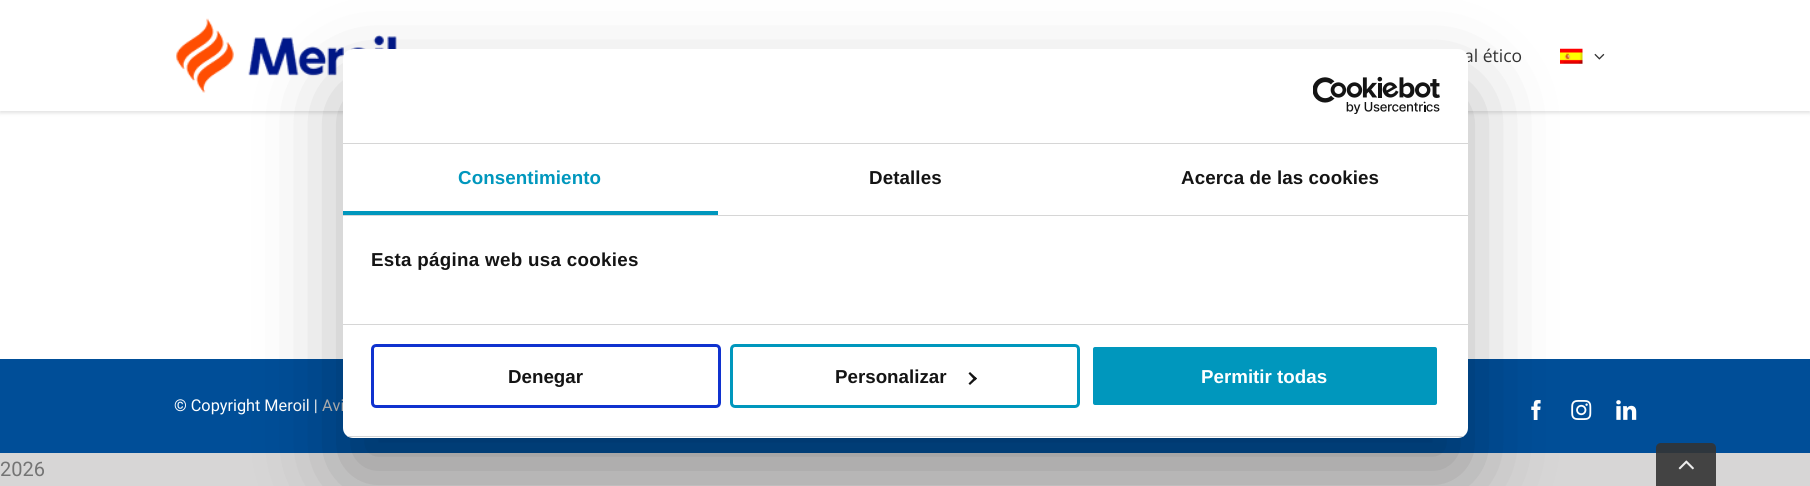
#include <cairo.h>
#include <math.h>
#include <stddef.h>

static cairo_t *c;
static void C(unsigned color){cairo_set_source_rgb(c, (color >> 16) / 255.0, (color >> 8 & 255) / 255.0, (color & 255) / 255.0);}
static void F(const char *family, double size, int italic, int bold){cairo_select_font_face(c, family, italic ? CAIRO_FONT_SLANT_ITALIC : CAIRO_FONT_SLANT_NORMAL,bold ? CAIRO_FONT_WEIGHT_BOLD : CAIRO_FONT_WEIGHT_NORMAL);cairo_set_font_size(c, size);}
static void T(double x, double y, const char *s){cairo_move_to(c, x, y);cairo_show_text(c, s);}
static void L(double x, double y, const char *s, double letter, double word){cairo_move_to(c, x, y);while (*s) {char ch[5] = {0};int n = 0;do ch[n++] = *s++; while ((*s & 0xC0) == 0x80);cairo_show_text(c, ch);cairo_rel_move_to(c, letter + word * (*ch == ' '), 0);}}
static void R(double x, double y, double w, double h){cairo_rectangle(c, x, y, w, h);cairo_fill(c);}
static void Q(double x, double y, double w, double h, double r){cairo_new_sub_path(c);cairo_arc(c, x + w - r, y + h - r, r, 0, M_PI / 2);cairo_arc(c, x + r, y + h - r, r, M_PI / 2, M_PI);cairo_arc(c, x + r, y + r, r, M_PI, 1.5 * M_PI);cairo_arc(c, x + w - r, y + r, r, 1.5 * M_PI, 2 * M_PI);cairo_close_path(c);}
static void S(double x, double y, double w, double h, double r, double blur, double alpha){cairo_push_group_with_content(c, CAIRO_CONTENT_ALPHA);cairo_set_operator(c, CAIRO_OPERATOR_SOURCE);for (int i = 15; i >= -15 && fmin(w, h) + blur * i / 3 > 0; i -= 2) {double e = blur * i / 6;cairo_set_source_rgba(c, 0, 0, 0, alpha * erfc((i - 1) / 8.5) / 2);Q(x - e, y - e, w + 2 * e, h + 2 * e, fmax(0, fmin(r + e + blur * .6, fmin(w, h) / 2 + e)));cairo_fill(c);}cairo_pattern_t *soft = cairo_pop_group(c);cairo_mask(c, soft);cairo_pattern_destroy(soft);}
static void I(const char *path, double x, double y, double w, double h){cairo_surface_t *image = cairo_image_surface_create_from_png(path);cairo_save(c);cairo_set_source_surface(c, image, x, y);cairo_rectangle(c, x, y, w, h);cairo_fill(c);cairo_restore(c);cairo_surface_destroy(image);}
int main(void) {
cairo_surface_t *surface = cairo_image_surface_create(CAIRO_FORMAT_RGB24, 1810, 486);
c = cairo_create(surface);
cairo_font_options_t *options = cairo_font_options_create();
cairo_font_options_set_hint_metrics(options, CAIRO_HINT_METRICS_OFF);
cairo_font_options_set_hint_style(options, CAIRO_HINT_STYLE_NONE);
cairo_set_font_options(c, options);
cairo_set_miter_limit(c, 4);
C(0xd7d6d6);
cairo_paint(c);
C(0xffffff);
R(0,111,1810,248);
C(0x000000);
S(0,1,1810,112,0,2,.12);
C(0xffffff);
R(0,0,1810,111);
I("1.png",176,18,221,75);
F("Open Sans",17.5,0,0);
C(0x333333);
T(1464,62,"al ético");
I("2.png",1560,48,23,16);
I("3.png",1594,53,11,7);
C(0x004e98);
R(0,359,1810,94);
F("Roboto",16.25,0,0);
C(0xffffff);
T(174,411,"© Copyright Meroil |");
C(0xbfbfbf);
T(322,411,"Avi");
I("4.png",1531,400,10,20);
I("5.png",1571,400,21,20);
I("6.png",1616,400,21,20);
C(0x000000);
S(343,89,1125,389,10,42.5,.3);
C(0xffffff);
Q(343,49,1125,389,10);
cairo_fill(c);
C(0xd6d6d6);
R(343,143,1125,1);
I("7.png",1313,76,127,38);
R(343,215,1125,1);
C(0x0097bd);
R(343,211,375,4);
F("Liberation Sans",18.75,0,1);
L(458,184,"Consentimiento",.1,0);
C(0x141414);
L(869,184,"Detalles",.1,0);
L(1181,184,"Acerca de las cookies",.1,0);
C(0xd6d6d6);
R(343,324,1125,1);
C(0x141414);
L(371,266,"Esta página web usa cookies",.3,0);
cairo_save(c);
Q(343,49,1125,389,10);
cairo_clip(c);
C(0xd6d6d6);
R(343,436,1125,1);
cairo_restore(c);
Q(372.5,345.5,347,61,3.5);
C(0x1032cf);
cairo_set_line_width(c,3);
cairo_stroke(c);
C(0x141414);
T(508,383,"Denegar");
Q(731.5,345.5,347,61,3.5);
C(0x0097bd);
cairo_stroke(c);
C(0x141414);
T(835,383,"Personalizar");
cairo_new_path(c);
cairo_move_to(c,970,372);
cairo_line_to(c,977,378.5);
cairo_line_to(c,975,380.5);
cairo_line_to(c,968.5,373.5);
cairo_close_path(c);
cairo_fill(c);
cairo_new_path(c);
cairo_move_to(c,975,377);
cairo_line_to(c,977,378.5);
cairo_line_to(c,970,385);
cairo_line_to(c,968.5,383.5);
cairo_close_path(c);
cairo_fill(c);
C(0x0097bd);
Q(1091.5,345.5,347,61,3.5);
cairo_fill_preserve(c);
C(0xffffff);
cairo_stroke(c);
T(1201,383,"Permitir todas");
F("Roboto",20,0,0);
C(0x747474);
T(0,476,"2026");
cairo_set_source_rgba(c,0.2,0.2,0.2,0.9);
cairo_new_path(c);
cairo_move_to(c,1661,443);
cairo_line_to(c,1711,443);
cairo_curve_to(c,1714,443,1716,445,1716,448);
cairo_line_to(c,1716,486);
cairo_line_to(c,1656,486);
cairo_line_to(c,1656,448);
cairo_curve_to(c,1656,445,1658,443,1661,443);
cairo_close_path(c);
cairo_fill(c);
I("8.png",1678,460,16,10);
cairo_surface_write_to_png(surface, "o.png");
cairo_font_options_destroy(options);
cairo_destroy(c);
cairo_surface_destroy(surface);
return 0;
}
